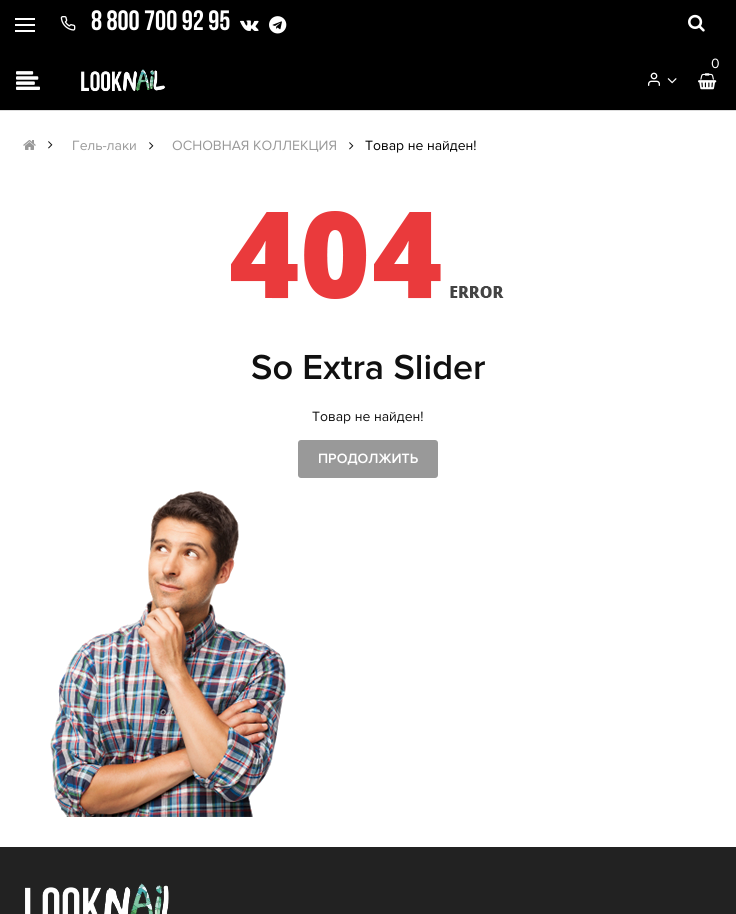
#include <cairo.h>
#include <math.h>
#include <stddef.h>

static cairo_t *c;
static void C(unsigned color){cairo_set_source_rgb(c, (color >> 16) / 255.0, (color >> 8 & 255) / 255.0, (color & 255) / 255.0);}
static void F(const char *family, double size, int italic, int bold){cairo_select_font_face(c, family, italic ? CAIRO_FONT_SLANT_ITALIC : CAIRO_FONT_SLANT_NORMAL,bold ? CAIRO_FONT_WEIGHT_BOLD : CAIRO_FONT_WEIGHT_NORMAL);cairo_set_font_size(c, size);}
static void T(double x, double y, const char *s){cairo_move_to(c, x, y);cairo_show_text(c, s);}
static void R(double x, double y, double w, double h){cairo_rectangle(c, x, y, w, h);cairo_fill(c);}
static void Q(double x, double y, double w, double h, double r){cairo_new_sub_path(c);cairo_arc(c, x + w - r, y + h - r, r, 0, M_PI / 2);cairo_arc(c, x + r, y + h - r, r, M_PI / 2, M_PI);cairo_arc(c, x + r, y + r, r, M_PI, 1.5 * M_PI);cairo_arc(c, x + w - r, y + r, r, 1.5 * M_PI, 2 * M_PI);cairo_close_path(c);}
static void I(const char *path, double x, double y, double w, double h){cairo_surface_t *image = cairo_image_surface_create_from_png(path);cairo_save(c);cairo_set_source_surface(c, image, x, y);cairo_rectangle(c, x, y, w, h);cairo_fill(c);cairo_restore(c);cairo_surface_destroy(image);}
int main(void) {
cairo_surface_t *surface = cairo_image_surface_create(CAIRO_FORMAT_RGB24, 736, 914);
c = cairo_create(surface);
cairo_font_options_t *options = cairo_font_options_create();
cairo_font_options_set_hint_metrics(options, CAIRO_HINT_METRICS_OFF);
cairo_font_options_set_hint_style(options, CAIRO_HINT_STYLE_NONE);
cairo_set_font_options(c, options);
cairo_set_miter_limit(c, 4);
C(0xffffff);
cairo_paint(c);
C(0x000000);
R(0,0,736,110);
C(0xdddddd);
R(0,110,736,1);
C(0xffffff);
R(15,18,20,2);
R(15,24,20,2);
R(15,30,20,2);
I("1.png",60,16,16,15);
F("Bebas Neue",28,0,1);
T(91,30,"8 800 700 92 95");
I("2.png",240,20,19,11);
I("3.png",269,16,18,18);
I("4.png",688,14,17,18);
F("Proxima Nova",14,0,0);
T(711,68,"0");
I("5.png",698,73,19,17);
I("6.png",648,72,12,14);
I("7.png",667,78,10,6);
I("8.png",16,71,24,19);
I("9.png",81,69,85,23);
I("10.png",23,140,13,10);
I("11.png",48,141,5,8);
C(0x999999);
T(72,150,"Гель-лаки");
I("11.png",149,142,5,8);
T(172,150,"ОСНОВНАЯ КОЛЛЕКЦИЯ");
I("11.png",349,142,5,8);
C(0x000000);
T(365,150,"Товар не найден!");
I("12.png",231,211,273,88);
F("Proxima Nova SemiBold",36,0,0);
C(0x101010);
T(251,379,"So Extra Slider");
F("Proxima Nova",14,0,0);
T(312,421,"Товар не найден!");
C(0x999999);
Q(298,440,140,38,3);
cairo_fill(c);
F("Proxima Nova SemiBold",14,0,0);
C(0xffffff);
T(318,463,"ПРОДОЛЖИТЬ");
I("13.png",50,491,236,326);
C(0x222222);
R(0,847,736,67);
I("14.png",25,883,144,31);
cairo_surface_write_to_png(surface, "o.png");
cairo_font_options_destroy(options);
cairo_destroy(c);
cairo_surface_destroy(surface);
return 0;
}
